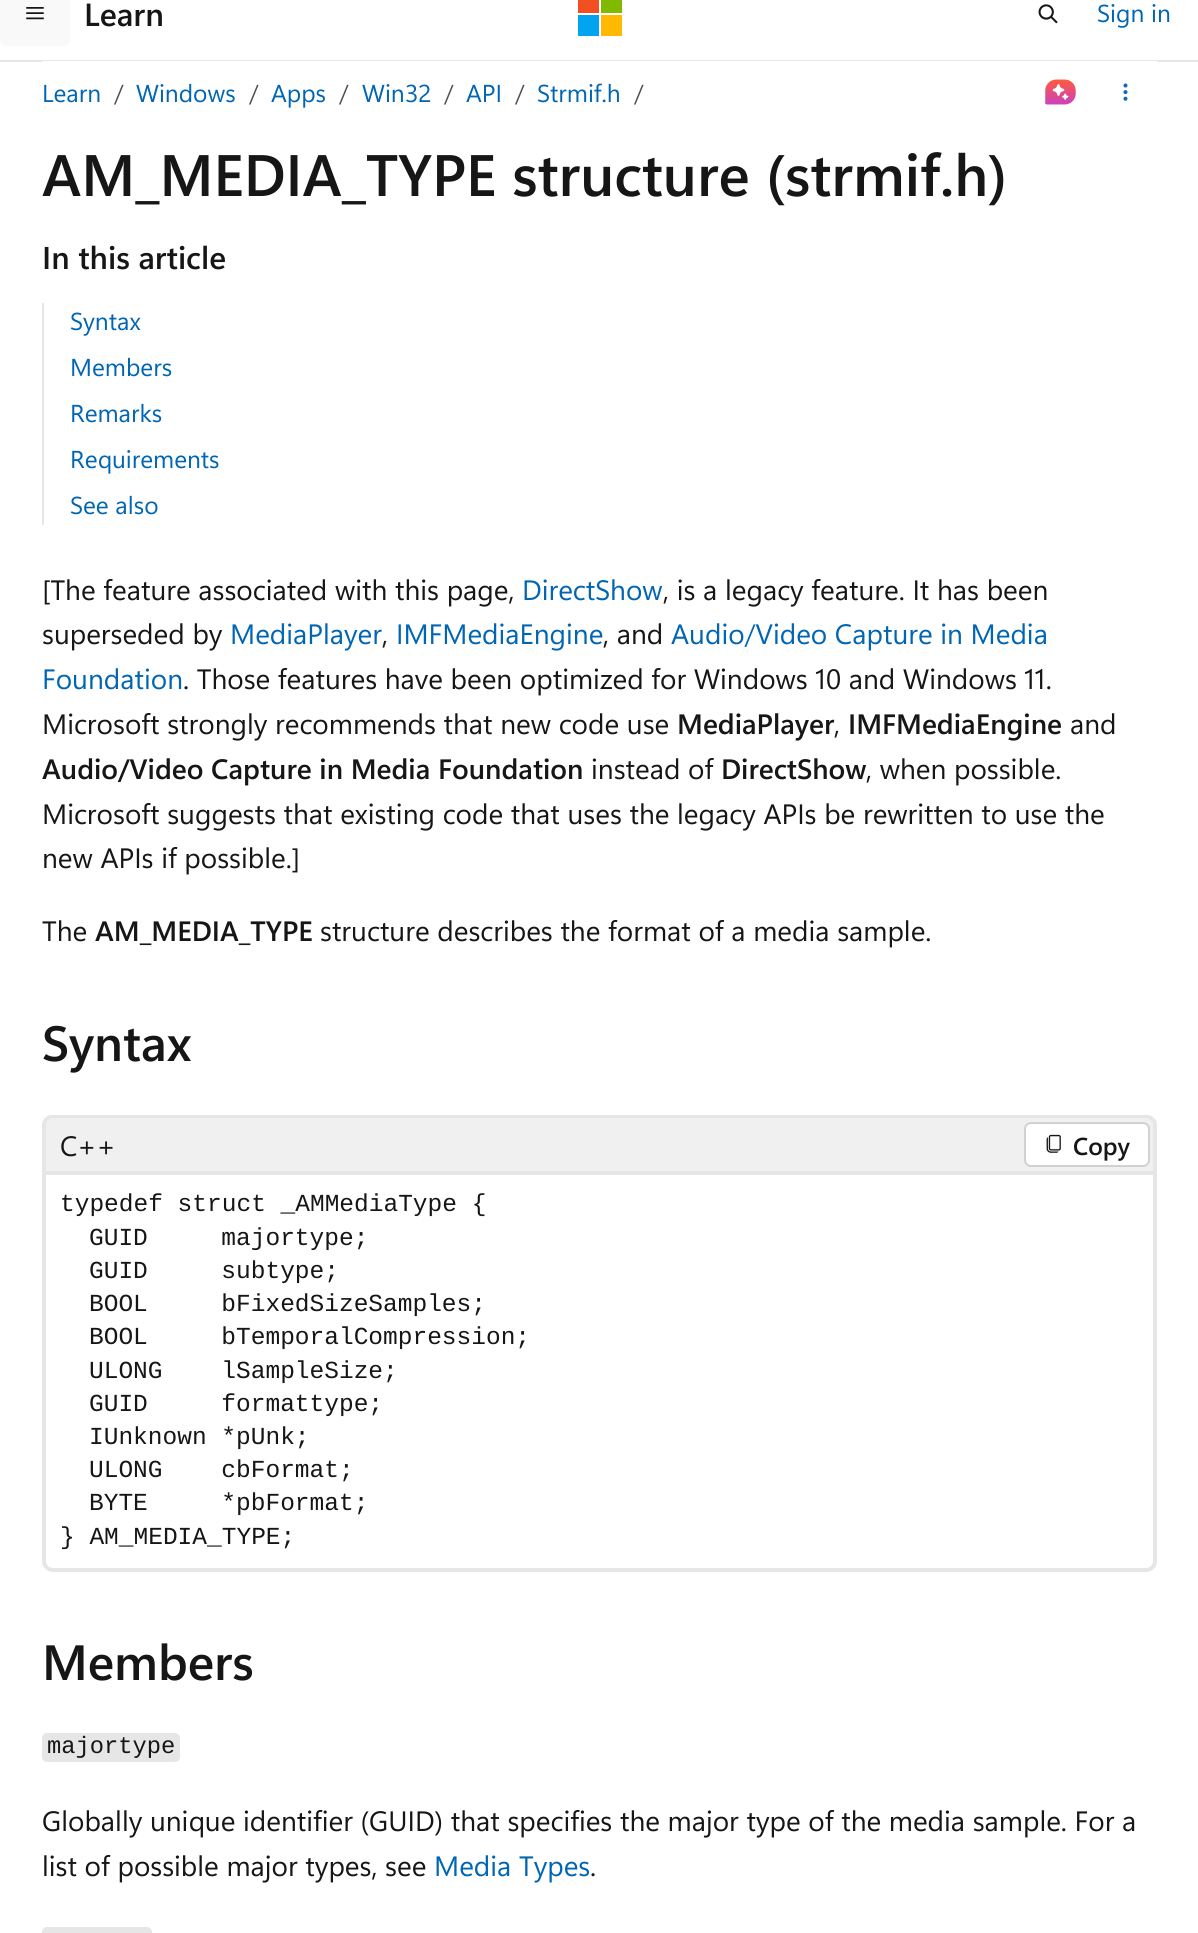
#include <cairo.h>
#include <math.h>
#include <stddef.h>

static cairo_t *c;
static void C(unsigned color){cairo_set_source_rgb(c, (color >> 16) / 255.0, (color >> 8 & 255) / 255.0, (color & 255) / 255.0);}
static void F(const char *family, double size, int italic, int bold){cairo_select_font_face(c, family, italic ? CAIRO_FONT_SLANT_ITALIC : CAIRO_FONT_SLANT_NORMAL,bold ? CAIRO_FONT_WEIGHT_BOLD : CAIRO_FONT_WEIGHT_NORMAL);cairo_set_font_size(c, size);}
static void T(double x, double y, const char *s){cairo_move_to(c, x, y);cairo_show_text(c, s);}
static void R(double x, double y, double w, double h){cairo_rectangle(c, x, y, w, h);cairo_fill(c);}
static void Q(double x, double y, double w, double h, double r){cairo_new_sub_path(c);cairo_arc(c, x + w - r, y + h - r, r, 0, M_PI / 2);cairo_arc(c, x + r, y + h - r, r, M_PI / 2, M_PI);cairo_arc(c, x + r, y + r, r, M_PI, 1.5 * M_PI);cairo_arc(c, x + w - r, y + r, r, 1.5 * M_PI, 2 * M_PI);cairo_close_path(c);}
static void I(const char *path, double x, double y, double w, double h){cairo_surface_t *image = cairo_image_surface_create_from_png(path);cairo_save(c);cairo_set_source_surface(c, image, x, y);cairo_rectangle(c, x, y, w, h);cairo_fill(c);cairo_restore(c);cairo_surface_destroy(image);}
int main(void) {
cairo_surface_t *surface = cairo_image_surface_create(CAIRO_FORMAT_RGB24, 1198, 1933);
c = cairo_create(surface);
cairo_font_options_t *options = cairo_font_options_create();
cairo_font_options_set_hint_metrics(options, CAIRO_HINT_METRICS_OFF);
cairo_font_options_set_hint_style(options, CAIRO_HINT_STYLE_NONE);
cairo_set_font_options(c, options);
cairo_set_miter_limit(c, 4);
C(0xffffff);
cairo_paint(c);
C(0xe6e6e6);
R(0,60,1198,2);
C(0xf9f9f9);
Q(0,-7,70,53,7);
cairo_fill(c);
I("1.png",26,7,18,13);
F("Segoe UI SemiBold",32,0,0);
C(0x161616);
T(84,26,"Learn");
C(0xf25022);
R(578,0,21,13);
C(0x7fba00);
R(601,0,21,13);
C(0x00a4ef);
R(578,15,21,21);
C(0xffb900);
R(601,15,21,21);
I("2.png",1038,4,20,20);
F("Segoe UI",24.5,0,0);
C(0x0065b3);
T(1097,22,"Sign in");
C(0xffffff);
R(42,61,1115,1);
C(0x0065b3);
T(42,102,"Learn");
C(0x505050);
T(114,102,"/");
C(0x0065b3);
T(136,102,"Windows");
C(0x505050);
T(249,102,"/");
C(0x0065b3);
T(271,102,"Apps");
C(0x505050);
T(339,102,"/");
C(0x0065b3);
T(362,102,"Win32");
C(0x505050);
T(444,102,"/");
C(0x0065b3);
T(466,102,"API");
C(0x505050);
T(515,102,"/");
C(0x0065b3);
T(537,102,"Strmif.h");
C(0x505050);
T(634,102,"/");
I("3.png",1045,79,31,26);
I("4.png",1123,83,5,18);
F("Segoe UI SemiBold",58.4,0,0);
C(0x161616);
T(42,196,"AM_MEDIA_TYPE structure (strmif.h)");
F("Segoe UI SemiBold",31.5,0,0);
T(42,269,"In this article");
C(0xe6e6e6);
R(42,303,2,222);
F("Segoe UI",24.5,0,0);
C(0x0065b3);
T(70,330,"Syntax");
T(70,376,"Members");
T(70,422,"Remarks");
T(70,468,"Requirements");
T(70,514,"See also");
F("Segoe UI",28,0,0);
C(0x161616);
T(42,600,"[The feature associated with this page,");
C(0x0065b3);
T(522,600,"DirectShow");
C(0x161616);
T(663,600,", is a legacy feature. It has been");
T(42,644,"superseded by");
C(0x0065b3);
T(230,644,"MediaPlayer");
C(0x161616);
T(382,644,",");
C(0x0065b3);
T(396,644,"IMFMediaEngine");
C(0x161616);
T(603,644,", and");
C(0x0065b3);
T(671,644,"Audio/Video Capture in Media");
T(42,689,"Foundation");
C(0x161616);
T(183,689,". Those features have been optimized for Windows 10 and Windows 11.");
T(42,734,"Microsoft strongly recommends that new code use");
F("Segoe UI SemiBold",28,0,0);
T(677,734,"MediaPlayer");
F("Segoe UI",28,0,0);
T(834,734,",");
F("Segoe UI SemiBold",28,0,0);
T(848,734,"IMFMediaEngine");
F("Segoe UI",28,0,0);
T(1070,734,"and");
F("Segoe UI SemiBold",28,0,0);
T(42,779,"Audio/Video Capture in Media Foundation");
F("Segoe UI",28,0,0);
T(591,779,"instead of");
F("Segoe UI SemiBold",28,0,0);
T(721,779,"DirectShow");
F("Segoe UI",28,0,0);
T(866,779,", when possible.");
T(42,824,"Microsoft suggests that existing code that uses the legacy APIs be rewritten to use the");
T(42,868,"new APIs if possible.]");
T(42,941,"The");
F("Segoe UI SemiBold",28,0,0);
T(95,941,"AM_MEDIA_TYPE");
F("Segoe UI",28,0,0);
T(320,941,"structure describes the format of a media sample.");
F("Segoe UI SemiBold",49.5,0,0);
T(42,1061,"Syntax");
C(0xf0f0f0);
cairo_new_path(c);
cairo_move_to(c,53,1115);
cairo_line_to(c,1146,1115);
cairo_curve_to(c,1152,1115,1157,1120,1157,1126);
cairo_line_to(c,1157,1171);
cairo_line_to(c,42,1171);
cairo_line_to(c,42,1126);
cairo_curve_to(c,42,1120,47,1115,53,1115);
cairo_close_path(c);
cairo_fill(c);
C(0xe6e6e6);
cairo_set_fill_rule(c,CAIRO_FILL_RULE_EVEN_ODD);
cairo_new_path(c);
cairo_move_to(c,52,1115);
cairo_line_to(c,1146,1115);
cairo_curve_to(c,1152,1115,1157,1119,1157,1125);
cairo_line_to(c,1157,1171);
cairo_line_to(c,42,1171);
cairo_line_to(c,42,1125);
cairo_curve_to(c,42,1119,47,1115,52,1115);
cairo_close_path(c);
cairo_move_to(c,52,1118);
cairo_line_to(c,1146,1118);
cairo_curve_to(c,1150,1118,1153,1121,1153,1125);
cairo_line_to(c,1153,1171);
cairo_line_to(c,46,1171);
cairo_line_to(c,46,1125);
cairo_curve_to(c,46,1121,49,1118,52,1118);
cairo_close_path(c);
cairo_fill(c);
F("Segoe UI",28,0,0);
C(0x161616);
T(60,1156,"C++");
C(0xffffff);
Q(1025,1123,124,43,6);
cairo_fill_preserve(c);
C(0xd1d1d1);
cairo_stroke(c);
I("5.png",1046,1134,15,19);
F("Segoe UI SemiBold",24.5,0,0);
C(0x161616);
T(1073,1155,"Copy");
cairo_new_path(c);
cairo_move_to(c,44,1173);
cairo_line_to(c,1155,1173);
cairo_line_to(c,1155,1561);
cairo_curve_to(c,1155,1566,1151,1570,1146,1570);
cairo_line_to(c,53,1570);
cairo_curve_to(c,48,1570,44,1566,44,1561);
cairo_close_path(c);
C(0xe6e6e6);
cairo_set_line_width(c,4);
cairo_stroke(c);
F("Liberation Mono",24.5,0,0);
C(0x161616);
T(60,1211,"typedef struct _AMMediaType {");
T(89,1245,"GUID     majortype;");
T(89,1278,"GUID     subtype;");
T(89,1311,"BOOL     bFixedSizeSamples;");
T(89,1344,"BOOL     bTemporalCompression;");
T(89,1378,"ULONG    lSampleSize;");
T(89,1411,"GUID     formattype;");
T(89,1444,"IUnknown *pUnk;");
T(89,1477,"ULONG    cbFormat;");
T(89,1510,"BYTE     *pbFormat;");
T(60,1544,"} AM_MEDIA_TYPE;");
F("Segoe UI SemiBold",49.5,0,0);
T(42,1680,"Members");
C(0xe6e6e6);
Q(42,1733,138,29,5);
cairo_fill(c);
F("Liberation Mono",23.75,0,0);
C(0x161616);
T(47,1753,"majortype");
F("Segoe UI",28,0,0);
T(42,1831,"Globally unique identifier (GUID) that specifies the major type of the media sample. For a");
T(42,1876,"list of possible major types, see");
C(0x0065b3);
T(434,1876,"Media Types");
C(0x161616);
T(590,1876,".");
C(0xe6e6e6);
Q(42,1927,110,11,5);
cairo_fill(c);
cairo_surface_write_to_png(surface, "o.png");
cairo_font_options_destroy(options);
cairo_destroy(c);
cairo_surface_destroy(surface);
return 0;
}
